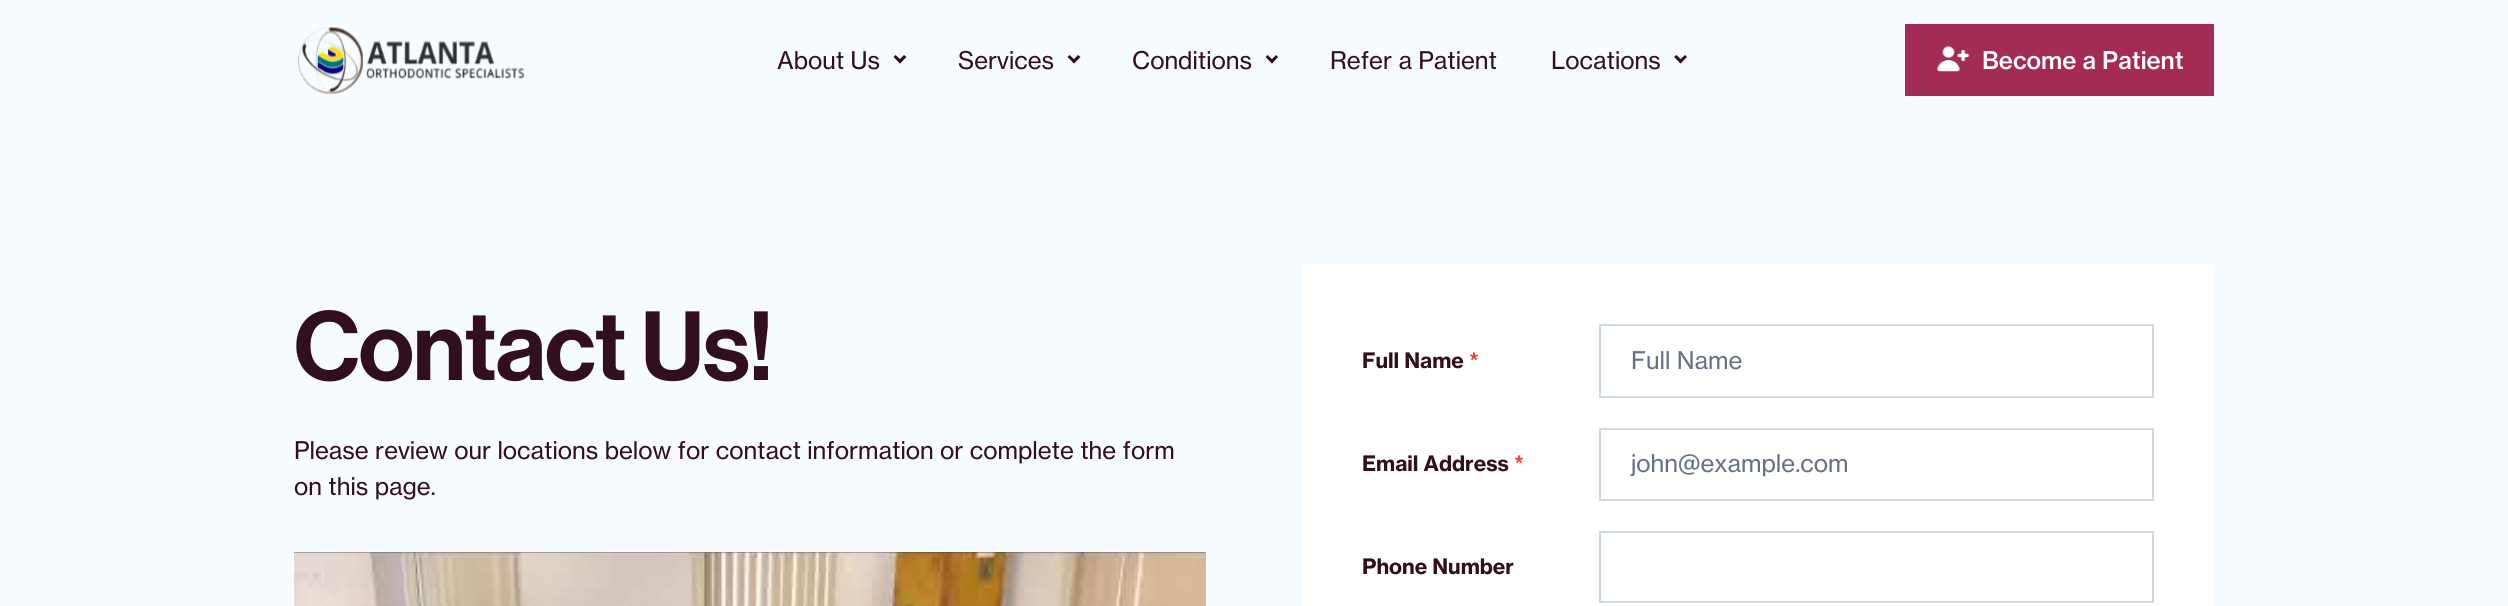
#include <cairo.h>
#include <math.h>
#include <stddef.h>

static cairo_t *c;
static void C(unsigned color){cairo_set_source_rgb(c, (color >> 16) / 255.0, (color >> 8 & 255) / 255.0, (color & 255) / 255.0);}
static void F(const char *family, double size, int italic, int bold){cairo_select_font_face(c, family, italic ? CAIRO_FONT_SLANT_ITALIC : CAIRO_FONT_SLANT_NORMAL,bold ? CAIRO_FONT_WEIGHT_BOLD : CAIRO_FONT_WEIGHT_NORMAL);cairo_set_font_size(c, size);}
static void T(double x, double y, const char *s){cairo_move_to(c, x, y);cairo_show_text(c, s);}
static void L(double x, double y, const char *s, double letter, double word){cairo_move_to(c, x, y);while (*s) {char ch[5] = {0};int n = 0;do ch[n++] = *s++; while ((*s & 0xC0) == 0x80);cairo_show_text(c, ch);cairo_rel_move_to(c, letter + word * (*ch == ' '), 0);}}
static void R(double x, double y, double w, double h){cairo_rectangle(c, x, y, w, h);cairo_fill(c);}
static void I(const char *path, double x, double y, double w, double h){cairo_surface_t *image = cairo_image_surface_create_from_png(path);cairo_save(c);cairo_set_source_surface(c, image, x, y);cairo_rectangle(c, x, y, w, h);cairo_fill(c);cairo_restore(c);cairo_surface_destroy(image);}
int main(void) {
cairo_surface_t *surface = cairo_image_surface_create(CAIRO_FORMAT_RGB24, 2508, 606);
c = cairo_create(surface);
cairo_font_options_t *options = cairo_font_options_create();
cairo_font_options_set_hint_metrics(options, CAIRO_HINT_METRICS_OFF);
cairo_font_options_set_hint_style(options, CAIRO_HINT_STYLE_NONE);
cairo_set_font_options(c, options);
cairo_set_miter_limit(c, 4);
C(0xf6fbff);
cairo_paint(c);
I("1.png",298,27,227,68);
F("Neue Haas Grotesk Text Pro",24,0,0);
C(0x310f1d);
T(777,69,"About Us");
cairo_new_path(c);
cairo_move_to(c,904,55);
cairo_line_to(c,906.5,57);
cairo_line_to(c,900,63.5);
cairo_line_to(c,898,61);
cairo_close_path(c);
cairo_fill(c);
cairo_new_path(c);
cairo_move_to(c,895.5,55);
cairo_line_to(c,902,61);
cairo_line_to(c,900,63.5);
cairo_line_to(c,893.5,57);
cairo_close_path(c);
cairo_fill(c);
T(958,69,"Services");
cairo_new_path(c);
cairo_move_to(c,1078,55);
cairo_line_to(c,1080.5,57);
cairo_line_to(c,1074,63.5);
cairo_line_to(c,1072,61);
cairo_close_path(c);
cairo_fill(c);
cairo_new_path(c);
cairo_move_to(c,1069.5,55);
cairo_line_to(c,1076,61);
cairo_line_to(c,1074,63.5);
cairo_line_to(c,1067.5,57);
cairo_close_path(c);
cairo_fill(c);
T(1132,69,"Conditions");
cairo_new_path(c);
cairo_move_to(c,1276,55);
cairo_line_to(c,1278,57);
cairo_line_to(c,1272,63.5);
cairo_line_to(c,1270,61);
cairo_close_path(c);
cairo_fill(c);
cairo_new_path(c);
cairo_move_to(c,1267.5,55);
cairo_line_to(c,1274,61);
cairo_line_to(c,1272,63.5);
cairo_line_to(c,1265.5,57);
cairo_close_path(c);
cairo_fill(c);
T(1330,69,"Refer a Patient");
T(1551,69,"Locations");
cairo_new_path(c);
cairo_move_to(c,1685,55);
cairo_line_to(c,1687,57);
cairo_line_to(c,1680.5,63.5);
cairo_line_to(c,1678.5,61);
cairo_close_path(c);
cairo_fill(c);
cairo_new_path(c);
cairo_move_to(c,1676.5,55);
cairo_line_to(c,1682.5,61);
cairo_line_to(c,1680.5,63.5);
cairo_line_to(c,1674,57);
cairo_close_path(c);
cairo_fill(c);
C(0xa32c56);
R(1905,24,309,72);
I("2.png",1937,46,33,26);
F("Neue Haas Grotesk Text Pro Medium",24,0,0);
C(0xfefdfd);
T(1982,69,"Become a Patient");
F("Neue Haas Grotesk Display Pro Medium",96,0,0);
C(0x310f1d);
L(294,380,"Contact Us!",-.9,0);
F("Neue Haas Grotesk Text Pro",24,0,0);
T(294,459,"Please review our locations below for contact information or complete the form");
T(294,495,"on this page.");
I("3.png",294,552,912,54);
C(0xffffff);
R(1302,264,912,342);
F("Neue Haas Grotesk Text Pro",21,0,1);
C(0x310f1d);
T(1362,368,"Full Name");
C(0xf04438);
T(1469,368,"*");
cairo_rectangle(c,1600,325,553,72);
C(0xcfd9e1);
cairo_stroke(c);
F("Neue Haas Grotesk Text Pro",24,0,0);
C(0x667085);
T(1631,369,"Full Name");
F("Neue Haas Grotesk Text Pro",21,0,1);
C(0x310f1d);
T(1362,471,"Email Address");
C(0xf04438);
T(1514,471,"*");
cairo_rectangle(c,1600,429,553,71);
C(0xcfd9e1);
cairo_stroke(c);
F("Neue Haas Grotesk Text Pro",24,0,0);
C(0x667085);
T(1631,472,"john@example.com");
F("Neue Haas Grotesk Text Pro",21,0,1);
C(0x310f1d);
T(1362,574,"Phone Number");
cairo_rectangle(c,1600,532,553,70);
C(0xcfd9e1);
cairo_stroke(c);
cairo_surface_write_to_png(surface, "o.png");
cairo_font_options_destroy(options);
cairo_destroy(c);
cairo_surface_destroy(surface);
return 0;
}
